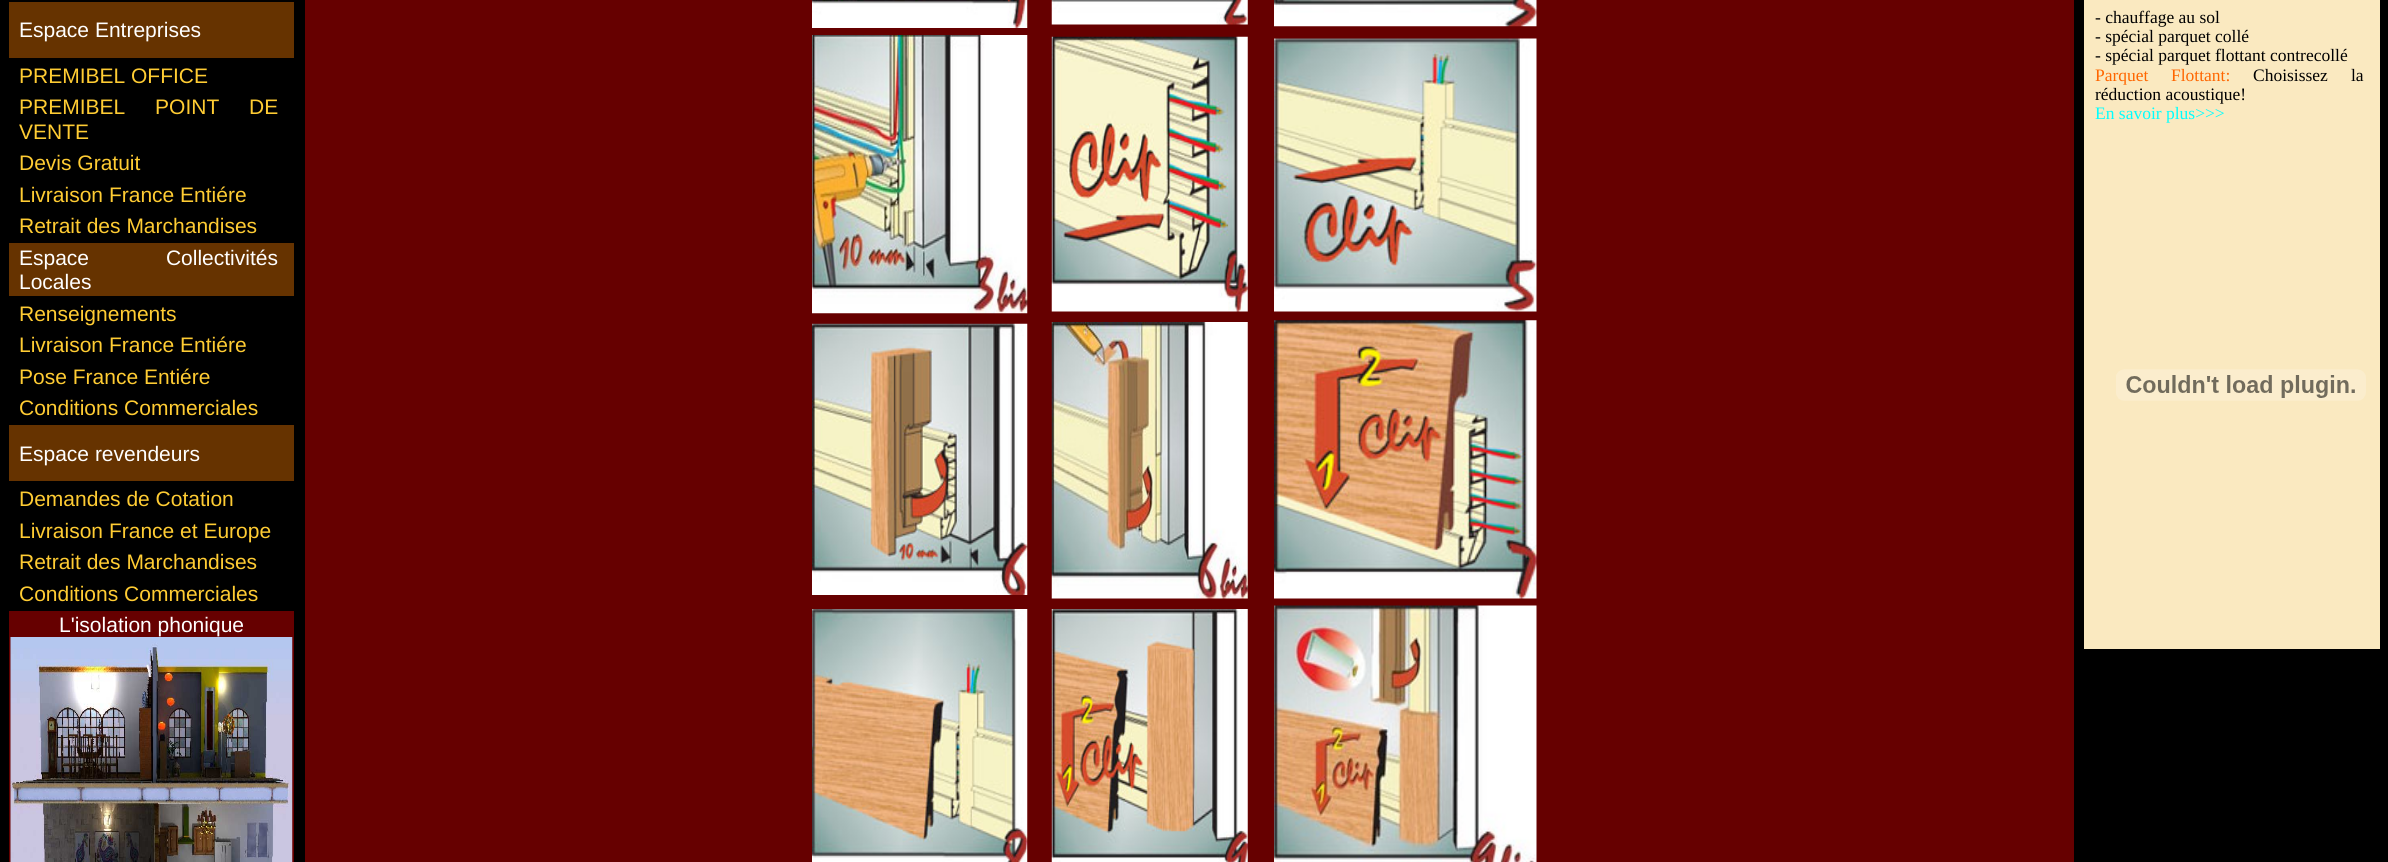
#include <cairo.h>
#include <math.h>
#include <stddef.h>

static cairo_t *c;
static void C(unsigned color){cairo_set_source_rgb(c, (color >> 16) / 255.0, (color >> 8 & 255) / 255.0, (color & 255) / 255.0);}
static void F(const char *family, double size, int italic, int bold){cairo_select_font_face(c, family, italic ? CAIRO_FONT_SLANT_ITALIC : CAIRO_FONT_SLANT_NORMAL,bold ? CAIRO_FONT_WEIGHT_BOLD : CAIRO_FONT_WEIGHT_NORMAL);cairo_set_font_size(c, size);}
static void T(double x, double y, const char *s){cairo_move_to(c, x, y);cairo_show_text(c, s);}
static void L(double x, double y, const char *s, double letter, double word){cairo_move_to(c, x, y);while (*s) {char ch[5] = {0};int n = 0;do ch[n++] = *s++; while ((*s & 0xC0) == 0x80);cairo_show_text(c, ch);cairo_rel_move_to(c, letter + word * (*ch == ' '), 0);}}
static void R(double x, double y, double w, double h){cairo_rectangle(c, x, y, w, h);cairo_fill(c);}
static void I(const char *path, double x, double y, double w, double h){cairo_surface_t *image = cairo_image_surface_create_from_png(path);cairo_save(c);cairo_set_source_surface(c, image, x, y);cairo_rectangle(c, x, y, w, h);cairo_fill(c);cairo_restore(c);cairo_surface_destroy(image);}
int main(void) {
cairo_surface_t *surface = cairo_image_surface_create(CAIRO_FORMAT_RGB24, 2388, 862);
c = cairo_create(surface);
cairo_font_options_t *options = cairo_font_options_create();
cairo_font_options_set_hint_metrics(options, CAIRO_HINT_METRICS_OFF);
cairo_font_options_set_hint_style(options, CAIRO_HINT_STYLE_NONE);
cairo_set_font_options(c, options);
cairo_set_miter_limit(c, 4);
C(0x000000);
cairo_paint(c);
C(0x663300);
R(9,2,285,56);
F("Liberation Sans",21,0,0);
C(0xffffff);
T(19,37,"Espace Entreprises");
C(0xffcc33);
T(19,83,"PREMIBEL OFFICE");
L(19,114,"PREMIBEL POINT DE",0,24);
T(19,139,"VENTE");
T(19,170,"Devis Gratuit");
T(19,202,"Livraison France Entiére");
T(19,233,"Retrait des Marchandises");
C(0x663300);
R(9,243,285,53);
C(0xffffff);
L(19,265,"Espace Collectivités",0,71);
T(19,289,"Locales");
C(0xffcc33);
T(19,321,"Renseignements");
T(19,352,"Livraison France Entiére");
T(19,384,"Pose France Entiére");
T(19,415,"Conditions Commerciales");
C(0x663300);
R(9,425,285,56);
C(0xffffff);
T(19,461,"Espace revendeurs");
C(0xffcc33);
T(19,506,"Demandes de Cotation");
T(19,538,"Livraison France et Europe");
T(19,569,"Retrait des Marchandises");
T(19,601,"Conditions Commerciales");
C(0x660000);
R(9,611,285,251);
C(0xffffff);
T(59,632,"L'isolation phonique");
I("1.png",10,637,283,225);
C(0x660000);
R(305,0,1769,862);
I("2.png",812,0,216,28);
I("3.png",1051,0,197,25);
I("4.png",1274,0,263,27);
I("5.png",812,35,216,279);
I("6.png",1051,36,197,276);
I("7.png",1274,38,263,274);
I("8.png",812,323,216,272);
I("9.png",1051,322,197,277);
I("10.png",1274,320,263,279);
I("11.png",812,609,216,253);
I("12.png",1051,609,197,253);
I("13.png",1274,605,263,257);
C(0xfae9c0);
R(2084,0,296,649);
F("Liberation Serif",17.5,0,0);
C(0x000000);
T(2095,23,"- chauffage au sol");
T(2095,42,"- spécial parquet collé");
T(2095,61,"- spécial parquet flottant contrecollé");
C(0xff6600);
T(2095,81,"Parquet");
T(2171,81,"Flottant:");
C(0x000000);
T(2253,81,"Choisissez");
T(2351,81,"la");
T(2095,100,"réduction acoustique!");
C(0x00ffff);
T(2095,119,"En savoir plus>>>");
I("14.png",2116,369,250,32);
cairo_surface_write_to_png(surface, "o.png");
cairo_font_options_destroy(options);
cairo_destroy(c);
cairo_surface_destroy(surface);
return 0;
}
